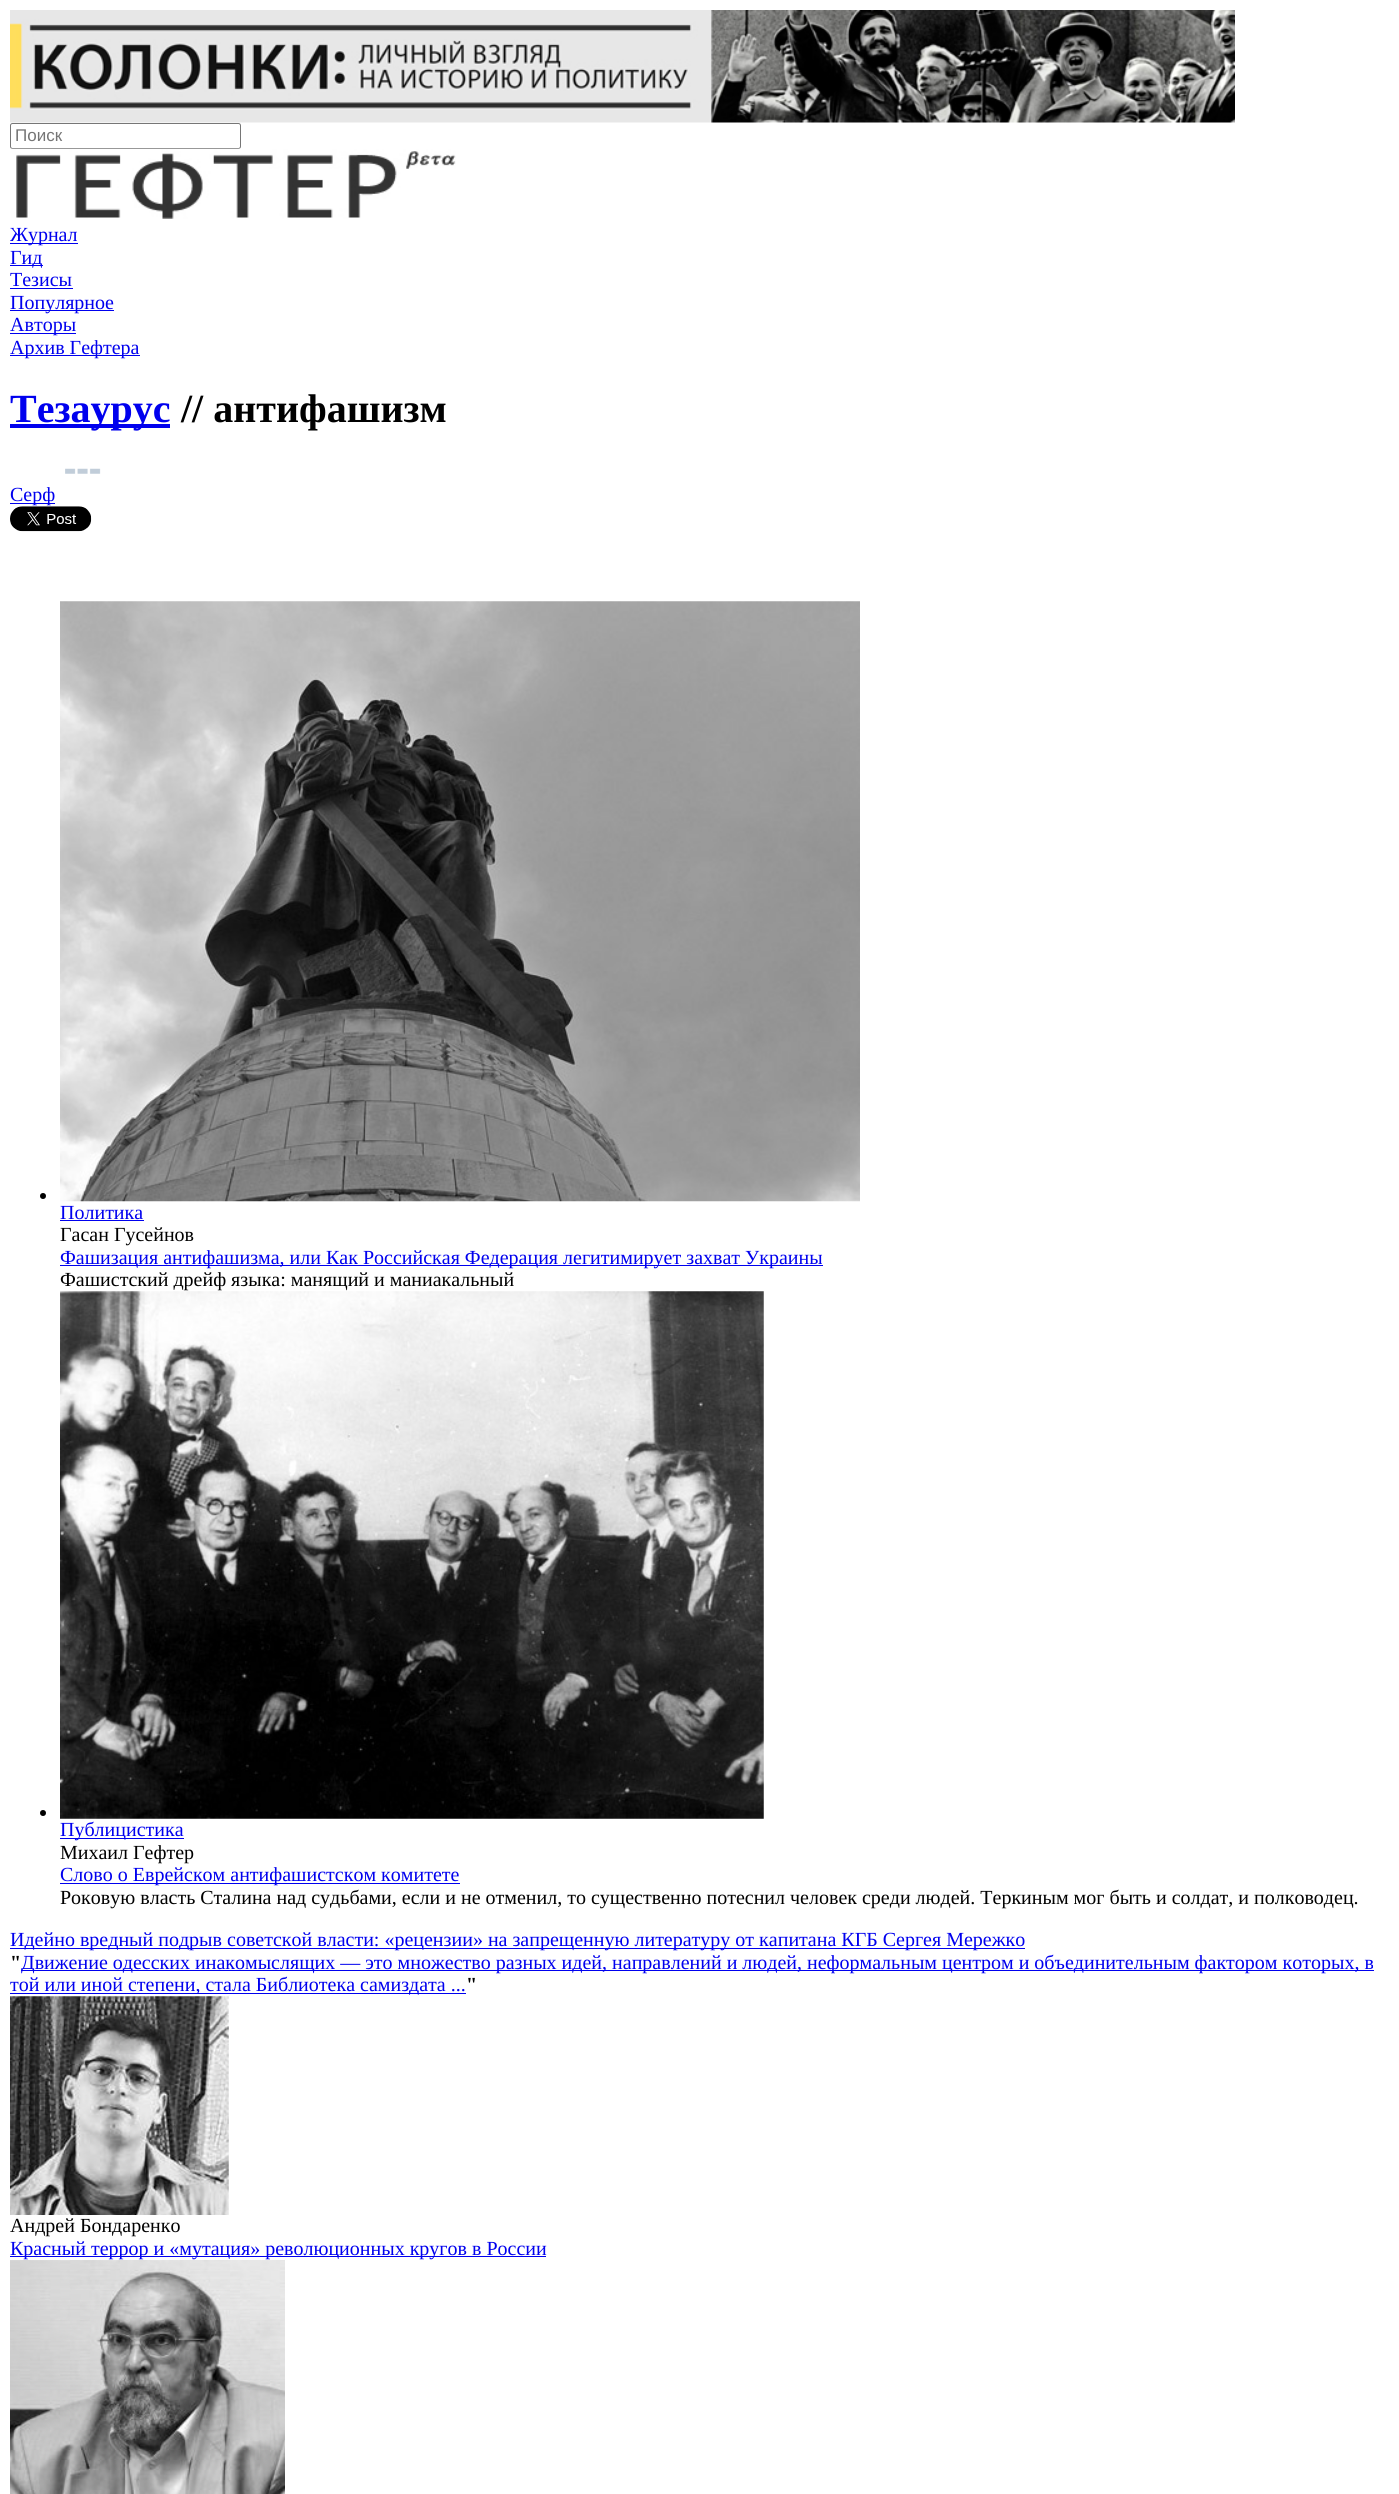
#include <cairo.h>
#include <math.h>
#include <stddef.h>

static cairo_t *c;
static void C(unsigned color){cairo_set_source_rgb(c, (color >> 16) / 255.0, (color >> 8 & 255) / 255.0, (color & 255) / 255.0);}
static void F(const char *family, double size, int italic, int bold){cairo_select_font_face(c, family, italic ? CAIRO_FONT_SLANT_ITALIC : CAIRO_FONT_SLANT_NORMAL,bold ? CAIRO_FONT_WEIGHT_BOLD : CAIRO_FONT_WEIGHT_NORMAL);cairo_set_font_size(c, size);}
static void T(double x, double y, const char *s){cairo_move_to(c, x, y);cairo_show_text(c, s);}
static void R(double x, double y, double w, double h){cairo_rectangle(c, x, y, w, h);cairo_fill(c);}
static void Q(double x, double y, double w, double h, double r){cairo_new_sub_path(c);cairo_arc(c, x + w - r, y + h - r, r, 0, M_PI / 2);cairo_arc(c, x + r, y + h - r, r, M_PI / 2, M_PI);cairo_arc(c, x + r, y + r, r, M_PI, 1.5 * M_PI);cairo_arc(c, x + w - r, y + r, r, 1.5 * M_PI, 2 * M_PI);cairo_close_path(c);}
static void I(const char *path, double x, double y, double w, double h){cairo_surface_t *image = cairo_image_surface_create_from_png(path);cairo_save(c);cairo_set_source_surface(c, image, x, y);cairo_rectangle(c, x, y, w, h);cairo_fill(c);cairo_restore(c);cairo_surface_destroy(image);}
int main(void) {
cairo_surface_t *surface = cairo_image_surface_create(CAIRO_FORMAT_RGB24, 1399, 2494);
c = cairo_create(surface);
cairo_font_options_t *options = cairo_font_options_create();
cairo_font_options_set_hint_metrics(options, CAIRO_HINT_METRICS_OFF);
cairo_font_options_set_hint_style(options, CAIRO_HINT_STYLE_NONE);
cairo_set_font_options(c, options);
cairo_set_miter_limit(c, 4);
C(0xffffff);
cairo_paint(c);
I("1.png",10,10,1225,113);
Q(10.5,123.5,230,25,2);
C(0x767676);
cairo_set_line_width(c,1);
cairo_stroke(c);
F("Liberation Sans",17,0,0);
C(0x757575);
T(15,141,"Поиск");
I("2.png",10,148,446,71);
C(0x0000ee);
R(10,243,68,1);
F("Liberation Serif",20,0,0);
T(10,241,"Журнал");
R(10,265,33,1);
T(10,264,"Гид");
T(10,286,"Тезисы");
R(10,288,63,1);
R(10,310,104,1);
T(10,309,"Популярное");
R(10,333,66,1);
T(10,331,"Авторы");
R(10,355,130,1);
T(10,354,"Архив Гефтера");
R(10,424,160,4);
F("Liberation Serif",40,0,1);
T(10,422,"Тезаурус");
C(0x000000);
T(181,422,"// антифашизм");
I("3.png",65,468,36,6);
C(0x0000ee);
R(10,503,45,1);
F("Liberation Serif",20,0,0);
T(10,501,"Серф");
I("4.png",10,506,82,26);
C(0x000000);
cairo_arc(c,43,1196,3,0,2 * M_PI);
cairo_fill(c);
I("5.png",60,601,800,601);
C(0x0000ee);
T(60,1219,"Политика");
R(60,1220,84,1);
C(0x000000);
T(60,1241,"Гасан Гусейнов");
C(0x0000ee);
R(60,1265,763,1);
T(60,1264,"Фашизация антифашизма, или Как Российская Федерация легитимирует захват Украины");
C(0x000000);
T(60,1286,"Фашистский дрейф языка: манящий и маниакальный");
cairo_new_path(c);
cairo_arc(c,43,1813,3,0,2 * M_PI);
cairo_fill(c);
I("6.png",60,1291,704,528);
C(0x0000ee);
R(60,1838,124,1);
T(60,1836,"Публицистика");
C(0x000000);
T(60,1859,"Михаил Гефтер");
C(0x0000ee);
R(60,1883,400,1);
T(60,1881,"Слово о Еврейском антифашистском комитете");
C(0x000000);
T(60,1904,"Роковую власть Сталина над судьбами, если и не отменил, то существенно потеснил человек среди людей. Теркиным мог быть и солдат, и полководец.");
C(0x0000ee);
R(10,1948,1015,1);
T(10,1946,"Идейно вредный подрыв советской власти: «рецензии» на запрещенную литературу от капитана КГБ Сергея Мережко");
F("Liberation Serif",20,0,1);
C(0x000000);
T(10,1969,"\"");
C(0x0000ee);
R(21,1970,1353,1);
F("Liberation Serif",20,0,0);
T(21,1969,"Движение одесских инакомыслящих — это множество разных идей, направлений и людей, неформальным центром и объединительным фактором которых, в");
R(10,1993,456,1);
T(10,1991,"той или иной степени, стала Библиотека самиздата ...");
F("Liberation Serif",20,0,1);
C(0x000000);
T(466,1991,"\"");
I("7.png",10,1996,219,219);
F("Liberation Serif",20,0,0);
T(10,2232,"Андрей Бондаренко");
C(0x0000ee);
R(10,2256,536,1);
T(10,2255,"Красный террор и «мутация» революционных кругов в России");
I("8.png",10,2260,275,234);
cairo_surface_write_to_png(surface, "o.png");
cairo_font_options_destroy(options);
cairo_destroy(c);
cairo_surface_destroy(surface);
return 0;
}
